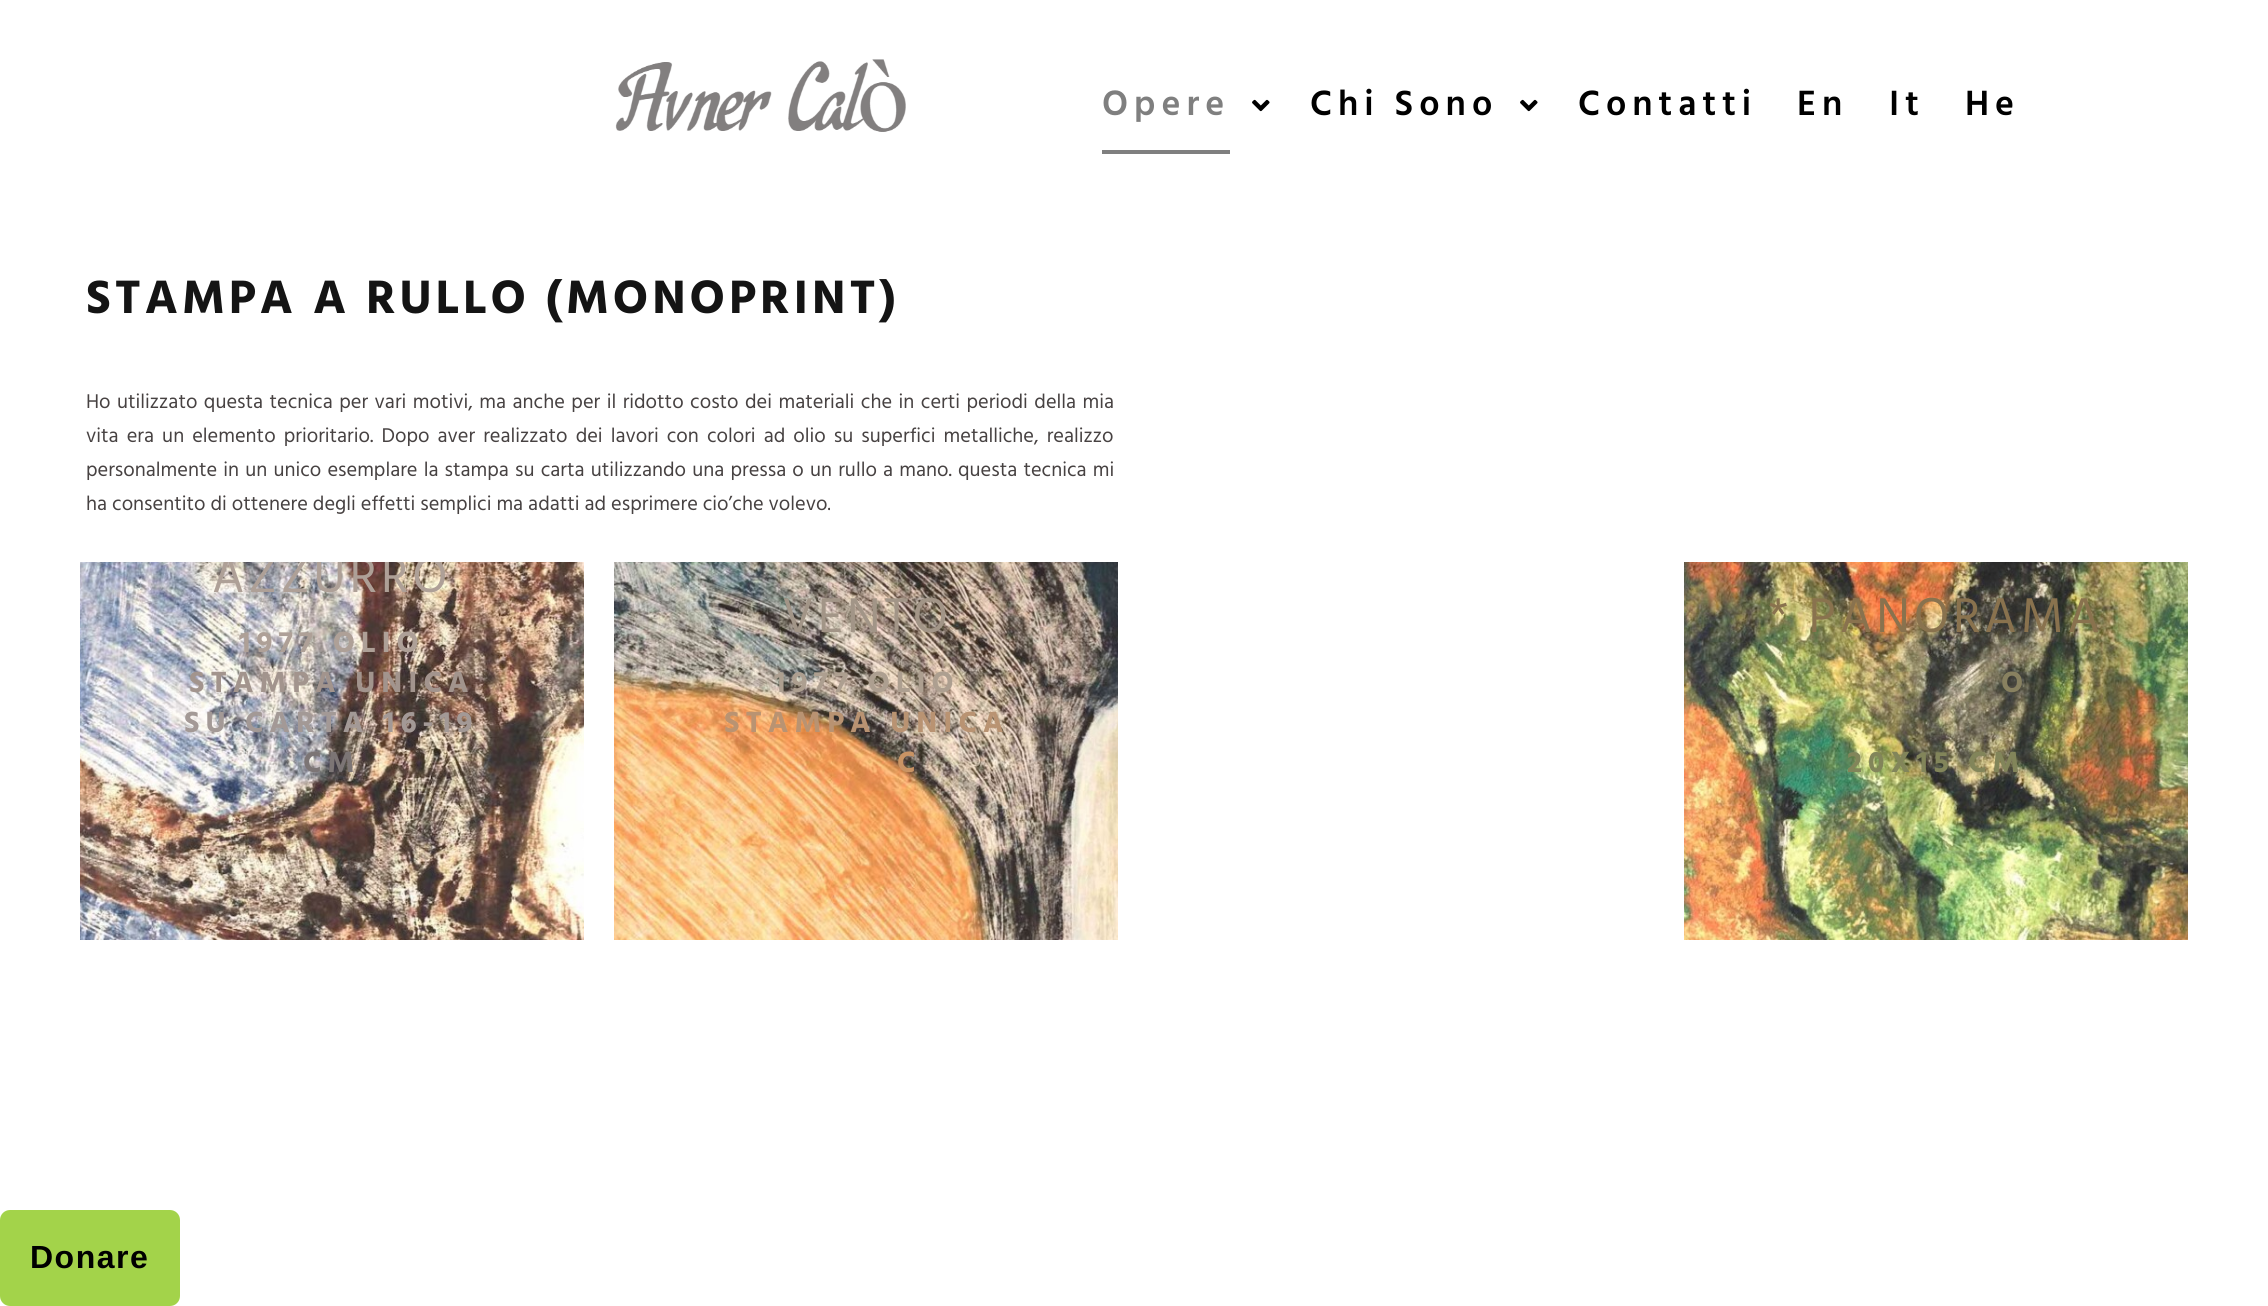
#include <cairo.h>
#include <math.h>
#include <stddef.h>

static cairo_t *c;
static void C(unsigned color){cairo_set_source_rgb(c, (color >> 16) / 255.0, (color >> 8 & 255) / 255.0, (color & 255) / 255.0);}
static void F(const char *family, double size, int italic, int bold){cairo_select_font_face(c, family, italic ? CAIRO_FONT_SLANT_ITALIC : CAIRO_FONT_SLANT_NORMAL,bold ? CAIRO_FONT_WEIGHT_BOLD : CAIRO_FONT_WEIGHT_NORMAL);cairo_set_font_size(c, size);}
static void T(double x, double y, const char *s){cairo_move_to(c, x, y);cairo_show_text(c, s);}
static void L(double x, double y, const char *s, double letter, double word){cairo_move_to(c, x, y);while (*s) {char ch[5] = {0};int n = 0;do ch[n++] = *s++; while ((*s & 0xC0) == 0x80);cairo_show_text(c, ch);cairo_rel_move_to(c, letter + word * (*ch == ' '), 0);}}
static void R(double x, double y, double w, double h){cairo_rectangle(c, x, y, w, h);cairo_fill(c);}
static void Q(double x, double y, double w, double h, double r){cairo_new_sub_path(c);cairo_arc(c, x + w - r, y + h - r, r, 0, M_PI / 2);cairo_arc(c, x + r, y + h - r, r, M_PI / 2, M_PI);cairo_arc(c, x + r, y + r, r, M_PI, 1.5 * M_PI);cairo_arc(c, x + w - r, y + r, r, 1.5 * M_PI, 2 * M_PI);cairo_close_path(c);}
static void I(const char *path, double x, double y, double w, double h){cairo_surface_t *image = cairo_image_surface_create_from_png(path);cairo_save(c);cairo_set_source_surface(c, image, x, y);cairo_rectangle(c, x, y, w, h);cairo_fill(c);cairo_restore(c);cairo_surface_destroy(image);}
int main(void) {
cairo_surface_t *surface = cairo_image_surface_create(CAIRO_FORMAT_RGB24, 2268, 1306);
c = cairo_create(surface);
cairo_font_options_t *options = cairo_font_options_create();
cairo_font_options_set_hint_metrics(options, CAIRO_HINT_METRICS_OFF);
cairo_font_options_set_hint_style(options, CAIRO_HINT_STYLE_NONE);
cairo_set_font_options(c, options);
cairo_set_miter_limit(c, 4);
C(0xffffff);
cairo_paint(c);
I("1.png",615,59,291,73);
F("Hind SemiBold",36,0,0);
C(0x7f7f7f);
L(1102,115,"Opere",6,0);
R(1102,150,128,4);
I("2.png",1252,99,18,13);
C(0x000000);
L(1310,115,"Chi Sono",6,0);
I("2.png",1520,99,18,13);
L(1578,115,"Contatti",6,0);
L(1797,115,"En",6,0);
L(1889,115,"It",6,0);
L(1965,115,"He",6,0);
F("Hind",48,0,1);
C(0x141414);
L(86,313,"STAMPA A RULLO (MONOPRINT)",4,0);
F("Hind",20.4,0,0);
C(0x474242);
L(86,408,"Ho utilizzato questa tecnica per vari motivi, ma anche per il ridotto costo dei materiali che in certi periodi della mia",0,1.5);
L(86,442,"vita era un elemento prioritario. Dopo aver realizzato dei lavori con colori ad olio su superfici metalliche, realizzo",0,3.1);
L(86,476,"personalmente in un unico esemplare la stampa su carta utilizzando una pressa o un rullo a mano. questa tecnica mi",0,1.2);
T(86,510,"ha consentito di ottenere degli effetti semplici ma adatti ad esprimere cio’che volevo.");
I("3.png",80,562,504,378);
cairo_save(c);
cairo_rectangle(c,80,562,504,378);
cairo_clip(c);
F("Hind",50,0,0);
C(0xaea097);
L(212,592,"AZZURRO",4,0);
cairo_restore(c);
F("Hind",30,0,1);
C(0xaea097);
L(239,652,"1977 OLIO",6,0);
C(0xa2948d);
L(189,692,"STAMPA UNICA",6,0);
C(0xa39996);
L(184,732,"SU CARTA 16-19",6,0);
C(0x7c7575);
L(303,772,"CM",6,0);
I("4.png",614,562,504,378);
F("Hind",50,0,0);
C(0xa29587);
L(782,632,"VENTO",4,0);
F("Hind",30,0,1);
C(0xad9f90);
L(774,692,"1977 OLIO",6,0);
C(0xb99372);
L(724,732,"STAMPA UNICA",6,0);
C(0xca9464);
L(897,772,"C",6,0);
I("5.png",1684,562,504,378);
F("Hind",50,0,0);
C(0x89724e);
L(1768,632,"* PANORAMA",4,0);
F("Hind",30,0,1);
C(0x888160);
L(2001,692,"O",6,0);
C(0x82855a);
L(1847,772,"20X15 CM",6,0);
C(0xa3d34a);
Q(5,1215,170,86,5);
cairo_fill_preserve(c);
cairo_set_line_width(c,10);
cairo_stroke(c);
F("Liberation Sans",32,0,1);
C(0x000000);
L(30,1268,"Donare",1.5,0);
cairo_surface_write_to_png(surface, "o.png");
cairo_font_options_destroy(options);
cairo_destroy(c);
cairo_surface_destroy(surface);
return 0;
}
